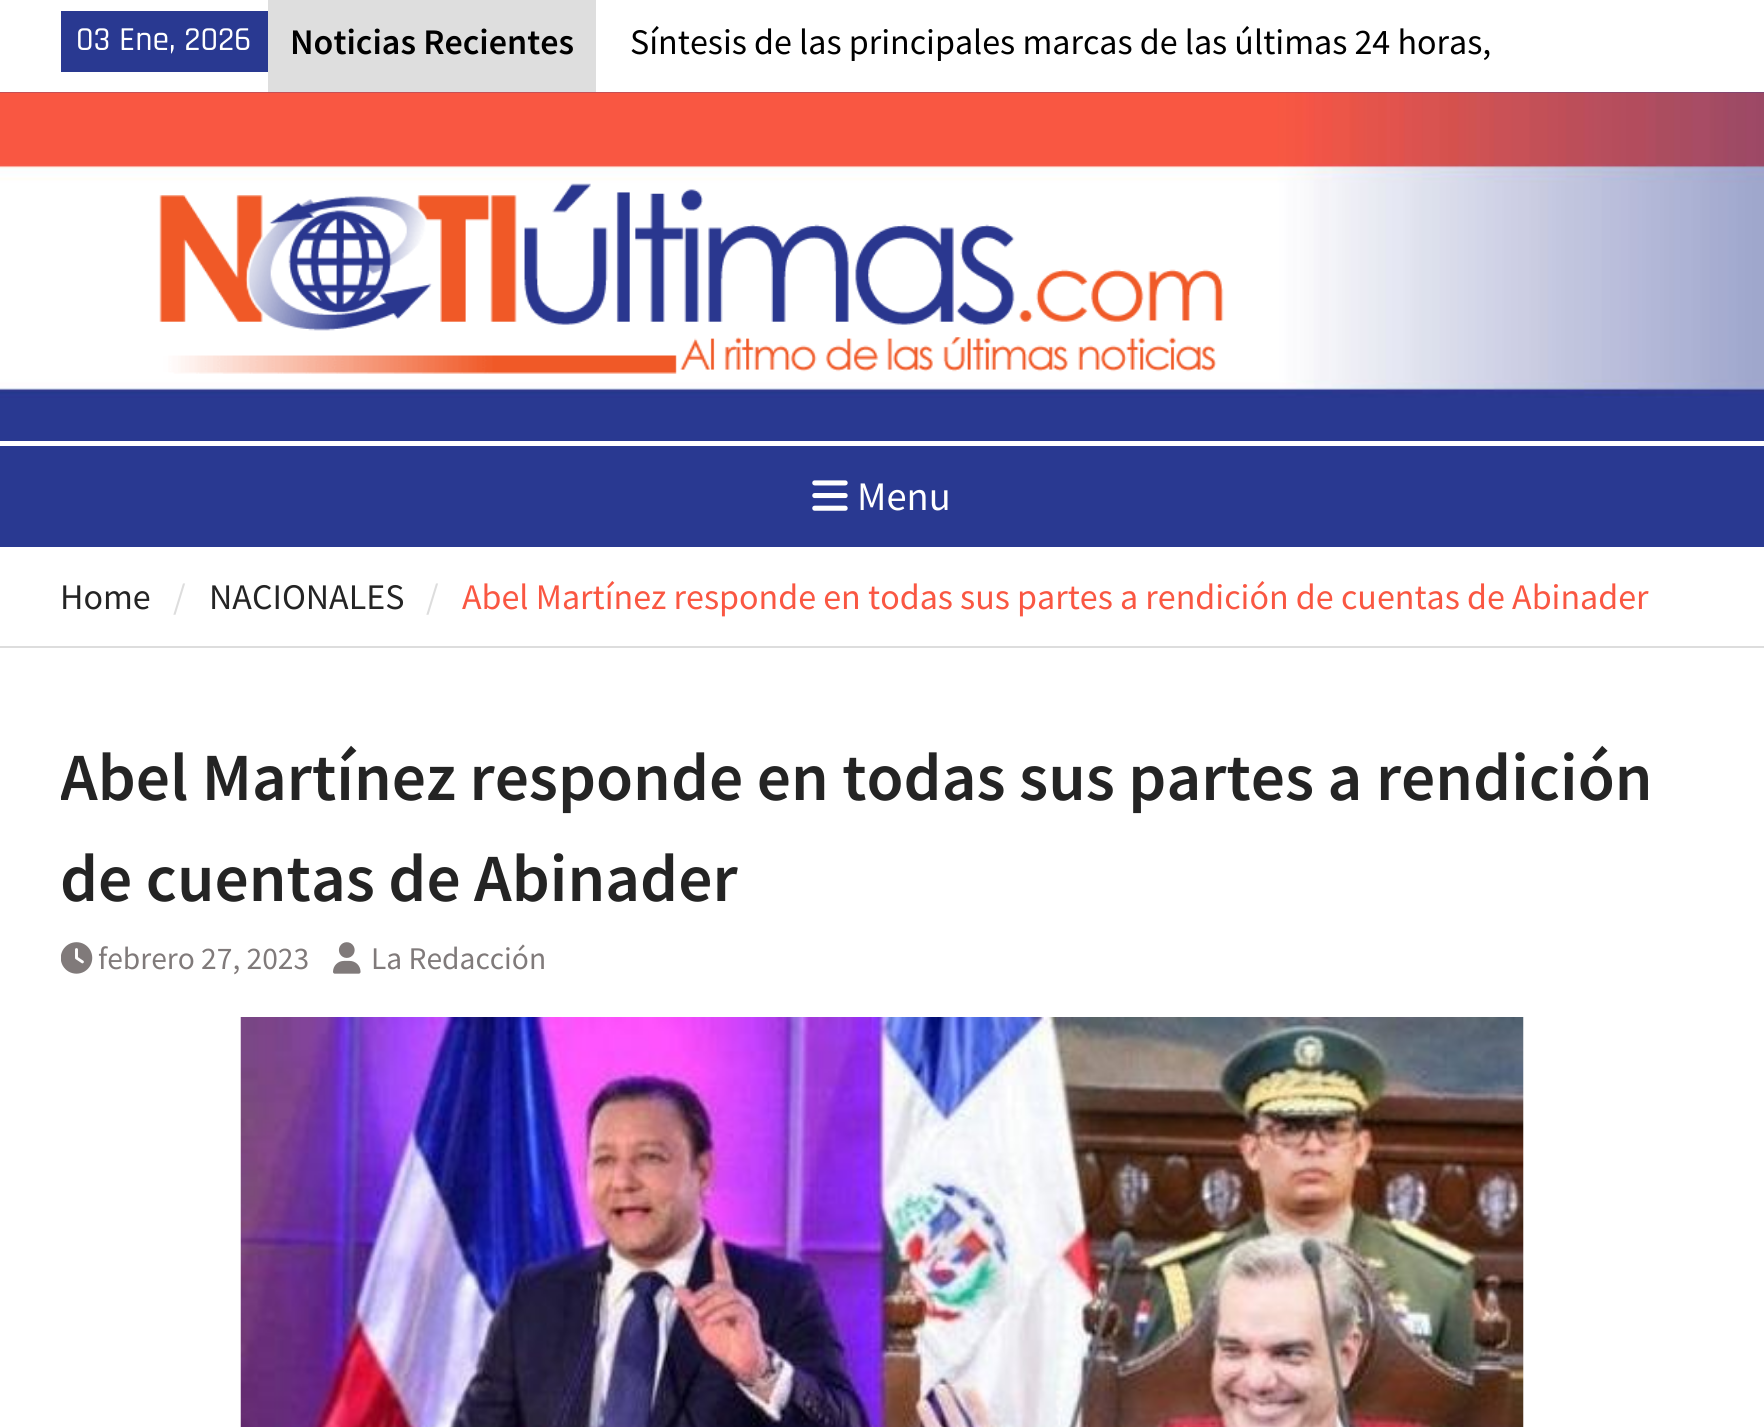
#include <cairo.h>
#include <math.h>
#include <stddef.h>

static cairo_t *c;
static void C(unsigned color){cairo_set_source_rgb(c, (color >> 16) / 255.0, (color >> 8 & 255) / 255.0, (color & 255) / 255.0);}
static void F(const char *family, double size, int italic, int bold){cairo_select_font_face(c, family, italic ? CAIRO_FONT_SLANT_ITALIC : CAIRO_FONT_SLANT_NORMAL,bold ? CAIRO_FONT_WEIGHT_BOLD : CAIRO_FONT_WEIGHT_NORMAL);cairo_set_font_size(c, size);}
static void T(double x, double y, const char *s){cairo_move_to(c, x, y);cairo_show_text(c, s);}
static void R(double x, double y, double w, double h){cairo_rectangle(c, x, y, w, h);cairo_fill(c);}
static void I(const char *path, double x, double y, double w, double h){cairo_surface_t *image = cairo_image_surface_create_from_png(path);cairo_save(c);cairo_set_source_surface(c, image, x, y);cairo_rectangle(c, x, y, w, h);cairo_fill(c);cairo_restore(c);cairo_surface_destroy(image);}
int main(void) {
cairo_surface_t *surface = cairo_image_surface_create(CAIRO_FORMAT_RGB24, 1764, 1427);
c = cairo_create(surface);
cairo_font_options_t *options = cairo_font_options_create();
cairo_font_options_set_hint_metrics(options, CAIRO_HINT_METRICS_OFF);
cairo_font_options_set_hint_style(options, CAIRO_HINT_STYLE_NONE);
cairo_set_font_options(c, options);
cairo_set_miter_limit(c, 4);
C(0xffffff);
cairo_paint(c);
C(0x293991);
R(61,11,207,61);
F("Rajdhani Medium",33.75,0,0);
C(0xffffff);
T(76,50,"03 Ene, 2026");
C(0xdedede);
R(268,0,328,92);
F("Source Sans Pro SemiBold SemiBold",36,0,0);
C(0x000000);
T(290,54,"Noticias Recientes");
cairo_save(c);
cairo_rectangle(c,630,14,920,47);
cairo_clip(c);
F("Source Sans Pro",36,0,0);
T(630,54,"Síntesis de las principales marcas de las últimas 24 horas,");
cairo_restore(c);
C(0x293991);
R(0,92,1764,349);
I("1.png",0,92,1764,306);
I("2.png",159,183,1065,191);
R(0,446,1764,101);
I("3.png",812,480,36,31);
F("Source Sans Pro",40.5,0,0);
C(0xffffff);
T(857,510,"Menu");
C(0xdddddd);
R(0,646,1764,2);
F("Source Sans Pro",36,0,0);
C(0x242424);
T(60,609,"Home");
C(0xdddddd);
T(173,609,"/");
C(0x242424);
T(209,609,"NACIONALES");
C(0xdddddd);
T(426,609,"/");
C(0xfa5742);
T(462,609,"Abel Martínez responde en todas sus partes a rendición de cuentas de Abinader");
cairo_save(c);
cairo_rectangle(c,61,727,1642,256);
cairo_clip(c);
F("Source Sans Pro SemiBold SemiBold",67.5,0,0);
C(0x242424);
T(60,800,"Abel Martínez responde en todas sus partes a rendición");
cairo_restore(c);
F("Source Sans Pro SemiBold SemiBold",67.5,0,0);
C(0x242424);
T(60,901,"de cuentas de Abinader");
I("4.png",61,942,32,32);
F("Source Sans Pro",31.5,0,0);
C(0x807a7a);
T(98,969,"febrero 27, 2023");
I("5.png",333,942,28,32);
T(371,969,"La Redacción");
I("6.png",240,1017,1284,410);
cairo_surface_write_to_png(surface, "o.png");
cairo_font_options_destroy(options);
cairo_destroy(c);
cairo_surface_destroy(surface);
return 0;
}
